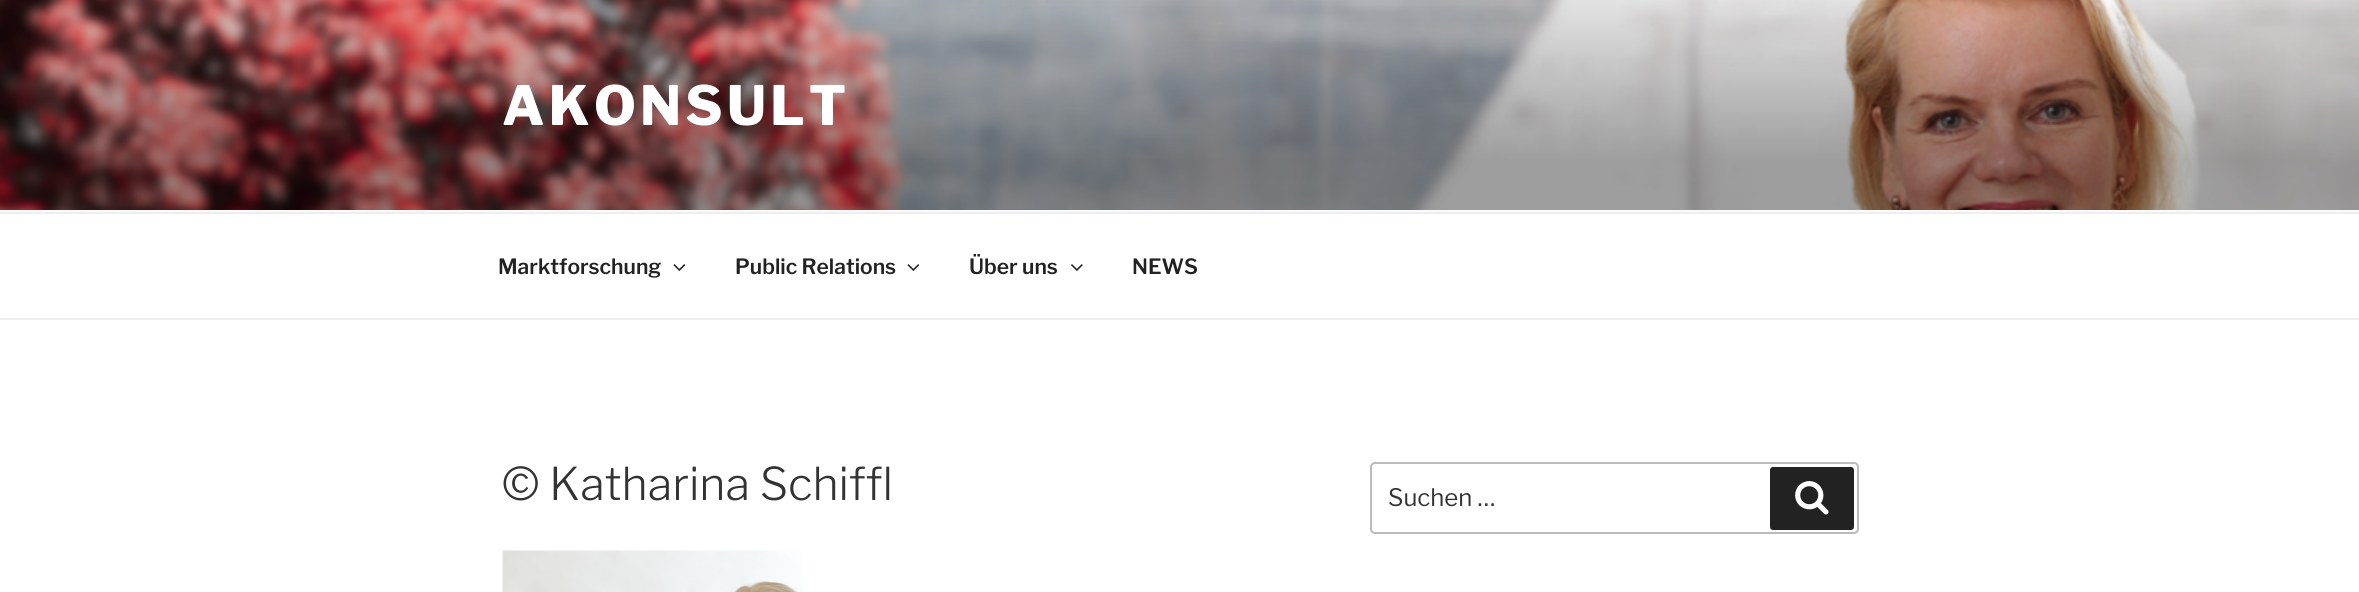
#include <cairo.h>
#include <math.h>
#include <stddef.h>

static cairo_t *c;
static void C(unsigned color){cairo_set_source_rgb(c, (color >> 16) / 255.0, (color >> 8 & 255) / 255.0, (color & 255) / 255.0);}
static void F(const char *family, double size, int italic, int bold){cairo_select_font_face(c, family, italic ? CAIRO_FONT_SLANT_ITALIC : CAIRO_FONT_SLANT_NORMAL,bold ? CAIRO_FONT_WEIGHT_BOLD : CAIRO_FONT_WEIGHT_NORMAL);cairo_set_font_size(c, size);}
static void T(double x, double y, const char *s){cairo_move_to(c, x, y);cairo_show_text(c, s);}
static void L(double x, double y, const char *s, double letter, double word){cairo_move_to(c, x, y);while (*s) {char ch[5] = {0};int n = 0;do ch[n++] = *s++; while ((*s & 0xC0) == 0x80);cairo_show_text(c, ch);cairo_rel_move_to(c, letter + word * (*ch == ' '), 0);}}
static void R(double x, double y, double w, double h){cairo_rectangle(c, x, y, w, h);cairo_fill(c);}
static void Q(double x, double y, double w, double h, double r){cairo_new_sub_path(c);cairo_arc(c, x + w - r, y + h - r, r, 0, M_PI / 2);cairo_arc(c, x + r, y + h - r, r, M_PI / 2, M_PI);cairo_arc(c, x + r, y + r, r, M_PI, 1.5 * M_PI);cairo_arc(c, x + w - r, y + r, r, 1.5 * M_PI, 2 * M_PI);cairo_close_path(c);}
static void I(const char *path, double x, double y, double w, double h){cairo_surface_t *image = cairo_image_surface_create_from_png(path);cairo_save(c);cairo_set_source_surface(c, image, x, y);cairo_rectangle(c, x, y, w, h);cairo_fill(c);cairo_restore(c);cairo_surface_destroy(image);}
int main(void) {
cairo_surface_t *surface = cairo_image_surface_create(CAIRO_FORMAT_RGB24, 2359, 592);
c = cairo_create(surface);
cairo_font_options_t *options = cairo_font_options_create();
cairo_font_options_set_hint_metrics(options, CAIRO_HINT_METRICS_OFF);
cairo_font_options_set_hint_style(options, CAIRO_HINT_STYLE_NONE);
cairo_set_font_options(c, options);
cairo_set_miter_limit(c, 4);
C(0xffffff);
cairo_paint(c);
C(0xfafafa);
R(0,210,2359,2);
I("1.png",0,0,2359,210);
F("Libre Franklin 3 Thin",54,0,0);
C(0xffffff);
L(502,125,"AKONSULT",4.25,0);
C(0xeeeeee);
R(0,212,2359,2);
R(0,318,2359,2);
F("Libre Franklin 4 Thin",21,0,0);
C(0x222222);
T(498,274,"Marktforschung");
I("2.png",673,264,13,7);
T(735,274,"Public Relations");
I("2.png",907,264,13,7);
T(969,274,"Über uns");
I("3.png",1071,264,12,7);
T(1132,274,"NEWS");
F("Libre Franklin Thin",45,0,0);
C(0x333333);
T(502,500,"© Katharina Schiffl");
I("4.png",502,550,301,42);
Q(1371,463,487,70,4);
C(0xbbbbbb);
cairo_stroke(c);
F("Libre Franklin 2 Thin",24,0,0);
C(0x333333);
T(1388,506,"Suchen …");
C(0x222222);
Q(1770,467,84,63,3);
cairo_fill(c);
I("5.png",1795,481,34,34);
cairo_surface_write_to_png(surface, "o.png");
cairo_font_options_destroy(options);
cairo_destroy(c);
cairo_surface_destroy(surface);
return 0;
}
